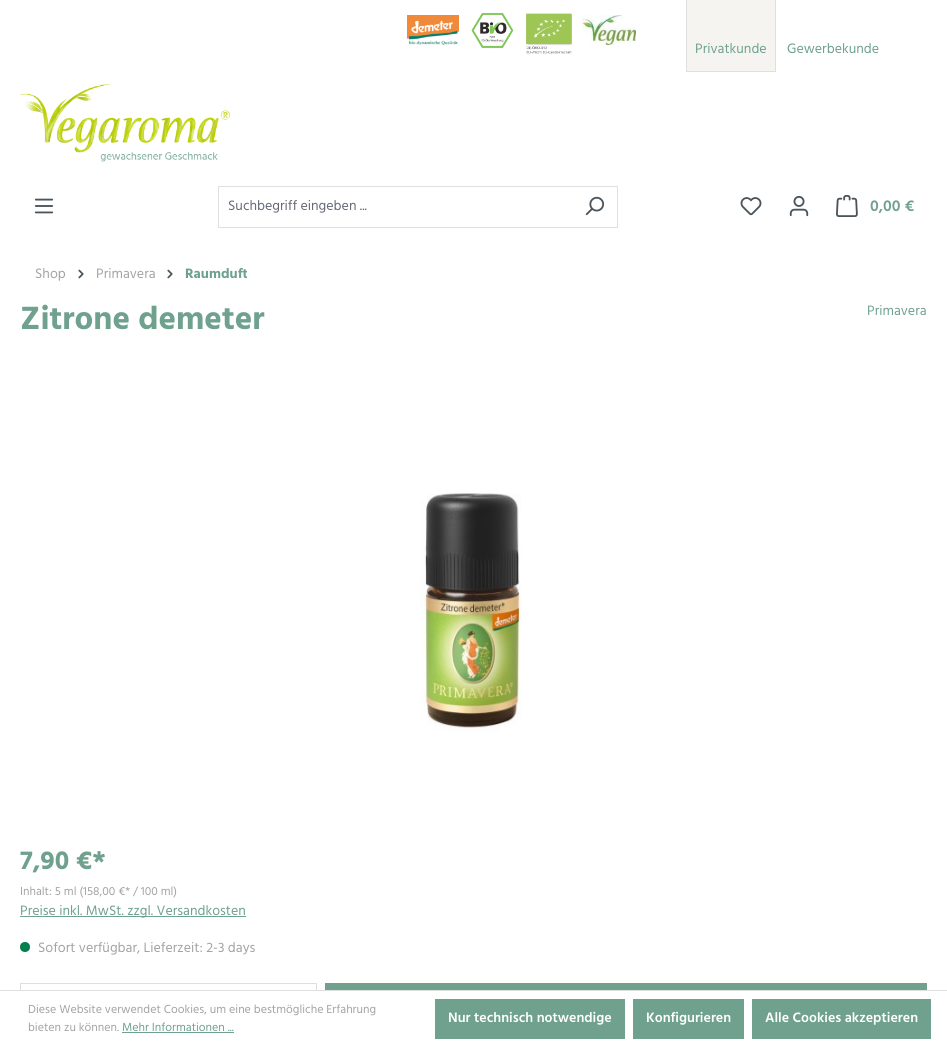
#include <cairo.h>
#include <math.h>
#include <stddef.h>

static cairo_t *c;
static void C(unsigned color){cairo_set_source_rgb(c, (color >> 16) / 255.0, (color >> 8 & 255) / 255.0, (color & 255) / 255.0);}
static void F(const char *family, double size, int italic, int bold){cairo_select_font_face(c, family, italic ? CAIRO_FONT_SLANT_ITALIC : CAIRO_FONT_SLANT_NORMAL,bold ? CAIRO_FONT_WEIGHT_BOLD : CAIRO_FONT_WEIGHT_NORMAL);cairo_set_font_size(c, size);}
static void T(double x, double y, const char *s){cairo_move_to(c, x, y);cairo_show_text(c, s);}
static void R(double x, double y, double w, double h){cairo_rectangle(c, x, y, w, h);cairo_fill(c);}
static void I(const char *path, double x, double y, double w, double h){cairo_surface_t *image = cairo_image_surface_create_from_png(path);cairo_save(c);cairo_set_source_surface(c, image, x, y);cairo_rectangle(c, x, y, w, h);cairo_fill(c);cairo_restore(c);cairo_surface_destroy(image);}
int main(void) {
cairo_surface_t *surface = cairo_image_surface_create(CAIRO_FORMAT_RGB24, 947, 1047);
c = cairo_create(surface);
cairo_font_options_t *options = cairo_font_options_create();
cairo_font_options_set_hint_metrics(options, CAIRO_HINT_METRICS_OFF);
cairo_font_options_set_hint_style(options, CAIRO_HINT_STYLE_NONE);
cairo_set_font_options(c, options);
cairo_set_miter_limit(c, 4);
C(0xffffff);
cairo_paint(c);
I("1.png",407,15,52,30);
I("2.png",471,12,43,37);
I("3.png",526,13,46,41);
I("4.png",582,15,54,30);
C(0xf5f4f1);
R(687,0,88,71);
F("Hind",14,0,0);
C(0x6fa18e);
T(695,53,"Privatkunde");
C(0xdfdfdf);
R(775,0,1,72);
R(686,71,90,1);
R(686,0,1,72);
C(0x6fa18e);
T(787,53,"Gewerbekunde");
I("5.png",20,84,210,78);
I("6.png",34,198,20,16);
C(0xdfdfdf);
R(218,186,400,1);
R(218,227,354,1);
R(218,186,1,42);
C(0x666977);
T(228,210,"Suchbegriff eingeben ...");
C(0xdfdfdf);
R(617,186,1,42);
R(571,227,47,1);
I("7.png",585,196,20,20);
I("8.png",740,197,22,19);
I("9.png",789,195,20,22);
I("10.png",836,195,22,22);
F("Hind SemiBold",16,0,0);
C(0x6fa18e);
T(870,211,"0,00 €");
F("Hind",14,0,0);
C(0xa3a3a3);
T(35,278,"Shop");
I("11.png",78,269,6,10);
T(96,278,"Primavera");
I("11.png",167,269,6,10);
F("Hind",14,0,1);
C(0x6fa18e);
T(185,278,"Raumduft");
F("Hind",33,0,1);
T(20,329,"Zitrone demeter");
F("Hind",14,0,0);
T(867,315,"Primavera");
I("12.png",420,493,101,239);
F("Hind",26.5,0,1);
T(20,869,"7,90 €*");
F("Hind",12,0,0);
C(0xa3a3a3);
T(20,895,"Inhalt: 5 ml (158,00 €* / 100 ml)");
C(0x6fa18e);
R(20,916,226,1);
F("Hind",14,0,0);
T(20,915,"Preise inkl. MwSt. zzgl. Versandkosten");
C(0x007e4e);
cairo_new_path(c);
cairo_arc(c,25,947,5,0,2 * M_PI);
cairo_fill(c);
C(0xa3a3a3);
T(38,952,"Sofort verfügbar, Lieferzeit: 2-3 days");
C(0xdfdfdf);
R(20,983,297,1);
R(20,983,1,7);
R(316,983,1,7);
C(0x6fa18e);
R(325,983,602,7);
C(0xdfdfdf);
R(0,990,947,1);
F("Hind",12,0,0);
C(0xa3a3a3);
T(28,1013,"Diese Website verwendet Cookies, um eine bestmögliche Erfahrung");
T(28,1031,"bieten zu können.");
C(0x6fa18e);
T(122,1031,"Mehr Informationen ...");
R(122,1032,112,1);
R(435,999,190,40);
F("Hind SemiBold",14,0,0);
C(0xffffff);
T(448,1022,"Nur technisch notwendige");
C(0x6fa18e);
R(633,999,111,40);
C(0xffffff);
T(646,1022,"Konfigurieren");
C(0x6fa18e);
R(752,999,179,40);
C(0xffffff);
T(765,1022,"Alle Cookies akzeptieren");
cairo_surface_write_to_png(surface, "o.png");
cairo_font_options_destroy(options);
cairo_destroy(c);
cairo_surface_destroy(surface);
return 0;
}
